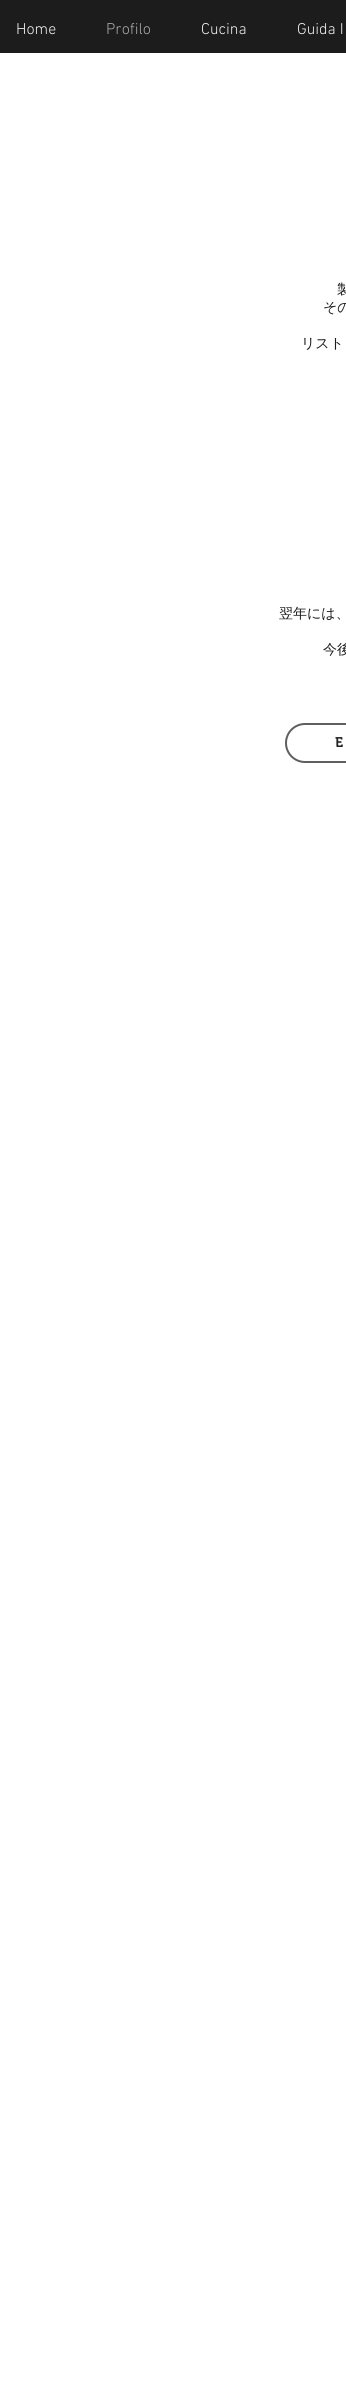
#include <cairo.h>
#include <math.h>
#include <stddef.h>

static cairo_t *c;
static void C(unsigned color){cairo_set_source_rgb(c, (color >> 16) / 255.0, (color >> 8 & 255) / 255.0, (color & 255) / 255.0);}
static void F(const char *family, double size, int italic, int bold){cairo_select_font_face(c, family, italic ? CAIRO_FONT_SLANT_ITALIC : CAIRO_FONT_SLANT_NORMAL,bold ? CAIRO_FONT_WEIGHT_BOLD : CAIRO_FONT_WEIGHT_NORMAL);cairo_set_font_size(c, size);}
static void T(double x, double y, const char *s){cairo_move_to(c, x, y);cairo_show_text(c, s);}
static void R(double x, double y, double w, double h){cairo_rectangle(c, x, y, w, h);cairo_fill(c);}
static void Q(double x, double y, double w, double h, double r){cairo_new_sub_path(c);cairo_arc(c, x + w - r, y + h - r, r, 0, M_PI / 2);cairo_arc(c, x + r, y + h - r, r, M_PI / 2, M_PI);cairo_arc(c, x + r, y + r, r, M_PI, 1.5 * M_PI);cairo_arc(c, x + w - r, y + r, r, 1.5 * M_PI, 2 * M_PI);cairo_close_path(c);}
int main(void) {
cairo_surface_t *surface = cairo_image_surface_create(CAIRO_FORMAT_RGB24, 346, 2391);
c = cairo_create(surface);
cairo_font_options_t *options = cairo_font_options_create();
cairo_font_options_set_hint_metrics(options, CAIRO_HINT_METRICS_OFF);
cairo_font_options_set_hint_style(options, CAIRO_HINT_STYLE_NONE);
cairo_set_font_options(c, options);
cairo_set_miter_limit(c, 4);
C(0xffffff);
cairo_paint(c);
C(0x1c1c1c);
R(0,0,346,53);
F("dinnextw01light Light",16,0,0);
C(0xf1f0f0);
T(16,34,"Home");
C(0xaaa8a8);
T(106,34,"Profilo");
C(0xf1f0f0);
T(201,34,"Cucina");
T(297,34,"Guida I");
F("WenQuanYi Zen Hei Medium",14,0,0);
C(0x1c1c1c);
T(337,294,"製");
T(323,312,"その");
T(301,348,"リスト");
T(279,618,"翌年には、");
T(323,654,"今後");
Q(286,724,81,38,19);
C(0x5f5f5f);
cairo_stroke(c);
F("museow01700 SemiBold",14,0,0);
C(0x232323);
T(335,747,"E");
cairo_surface_write_to_png(surface, "o.png");
cairo_font_options_destroy(options);
cairo_destroy(c);
cairo_surface_destroy(surface);
return 0;
}
